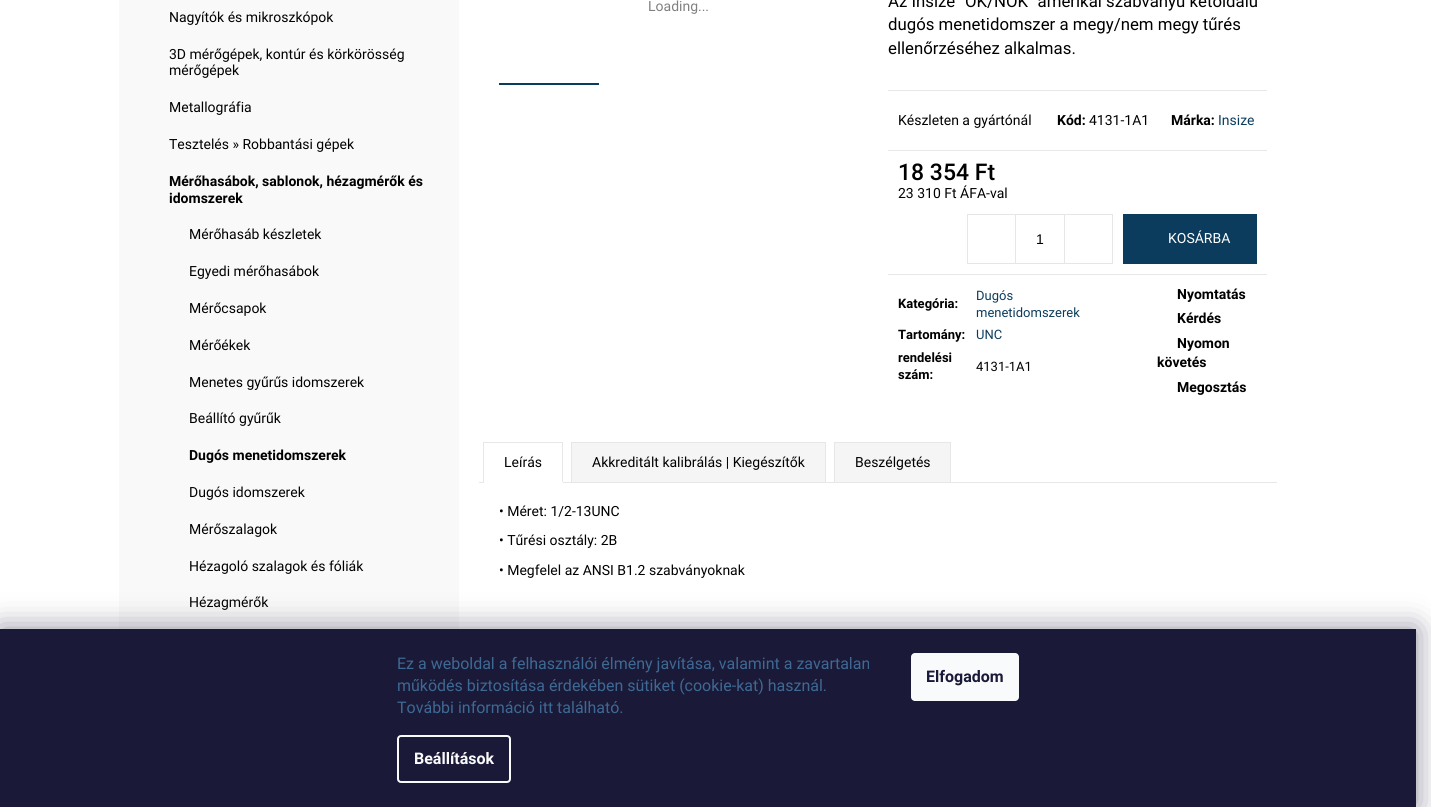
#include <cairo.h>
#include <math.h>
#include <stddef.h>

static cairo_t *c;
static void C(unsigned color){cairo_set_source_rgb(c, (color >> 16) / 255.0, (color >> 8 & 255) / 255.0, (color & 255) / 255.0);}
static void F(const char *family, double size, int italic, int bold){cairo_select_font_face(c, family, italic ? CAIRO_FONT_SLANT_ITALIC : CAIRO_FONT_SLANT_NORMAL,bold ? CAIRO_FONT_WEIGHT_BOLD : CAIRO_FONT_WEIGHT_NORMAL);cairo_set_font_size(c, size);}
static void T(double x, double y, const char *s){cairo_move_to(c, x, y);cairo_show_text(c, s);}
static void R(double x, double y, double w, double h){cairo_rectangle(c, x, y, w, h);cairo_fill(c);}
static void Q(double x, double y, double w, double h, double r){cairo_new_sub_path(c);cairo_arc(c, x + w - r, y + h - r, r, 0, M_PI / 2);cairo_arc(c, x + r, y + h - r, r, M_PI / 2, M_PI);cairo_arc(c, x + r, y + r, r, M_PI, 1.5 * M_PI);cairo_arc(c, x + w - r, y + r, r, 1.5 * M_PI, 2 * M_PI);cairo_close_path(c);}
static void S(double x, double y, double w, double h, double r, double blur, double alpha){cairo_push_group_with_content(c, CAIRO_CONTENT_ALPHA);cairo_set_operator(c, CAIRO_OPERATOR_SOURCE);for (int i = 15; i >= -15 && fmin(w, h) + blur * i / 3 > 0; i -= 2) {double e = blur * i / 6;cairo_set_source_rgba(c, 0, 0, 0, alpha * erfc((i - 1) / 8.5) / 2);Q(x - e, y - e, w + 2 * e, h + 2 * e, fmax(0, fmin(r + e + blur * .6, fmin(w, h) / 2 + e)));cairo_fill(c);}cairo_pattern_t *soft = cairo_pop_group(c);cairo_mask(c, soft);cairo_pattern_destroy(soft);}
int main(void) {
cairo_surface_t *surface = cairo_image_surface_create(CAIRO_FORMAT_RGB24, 1431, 807);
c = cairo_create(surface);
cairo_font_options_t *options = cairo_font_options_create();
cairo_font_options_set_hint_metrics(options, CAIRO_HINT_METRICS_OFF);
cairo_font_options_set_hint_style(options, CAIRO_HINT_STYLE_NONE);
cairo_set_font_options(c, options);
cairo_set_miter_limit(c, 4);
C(0xffffff);
cairo_paint(c);
C(0xf9f9f9);
R(119,0,340,629);
F("Roboto",14,0,0);
C(0x000000);
T(169,22,"Nagyítók és mikroszkópok");
T(169,59,"3D mérőgépek, kontúr és körkörösség");
T(169,75,"mérőgépek");
T(169,112,"Metallográfia");
T(169,149,"Tesztelés » Robbantási gépek");
F("Roboto",14,0,1);
T(169,186,"Mérőhasábok, sablonok, hézagmérők és");
T(169,203,"idomszerek");
F("Roboto",14,0,0);
T(189,239,"Mérőhasáb készletek");
T(189,276,"Egyedi mérőhasábok");
T(189,313,"Mérőcsapok");
T(189,350,"Mérőékek");
T(189,387,"Menetes gyűrűs idomszerek");
T(189,423,"Beállító gyűrűk");
F("Roboto",14,0,1);
T(189,460,"Dugós menetidomszerek");
F("Roboto",14,0,0);
T(189,497,"Dugós idomszerek");
T(189,534,"Mérőszalagok");
T(189,571,"Hézagoló szalagok és fóliák");
T(189,607,"Hézagmérők");
C(0x808080);
T(648,11,"Loading...");
C(0x0b3c5d);
R(499,83,100,2);
F("Roboto",16.8,0,0);
C(0x000000);
T(888,7,"Az Insize");
T(965,7,"OK/NOK\" amerikai szabványú kétoldalú");
T(888,30,"dugós menetidomszer a megy/nem megy tűrés");
T(888,54,"ellenőrzéséhez alkalmas.");
C(0xe7e7e7);
R(888,90,379,1);
R(888,150,379,1);
F("Roboto",14,0,0);
C(0x000000);
T(898,125,"Készleten a gyártónál");
F("Roboto",14,0,1);
T(1057,125,"Kód:");
F("Roboto",14,0,0);
T(1089,125,"4131-1A1");
F("Roboto",14,0,1);
T(1171,125,"Márka:");
F("Roboto",14,0,0);
C(0x0b3c5d);
T(1218,125,"Insize");
C(0xe7e7e7);
R(888,274,379,1);
F("Roboto Medium",23,0,0);
C(0x000000);
T(898,180,"18 354 Ft");
F("Roboto",14,0,0);
T(898,198,"23 310 Ft ÁFA-val");
cairo_rectangle(c,967.5,214.5,145,49);
C(0xe6e6e6);
cairo_set_line_width(c,1);
cairo_stroke(c);
R(1015,215,1,48);
F("Liberation Sans",14,0,0);
C(0x000000);
T(1036,244,"1");
C(0xe6e6e6);
R(1064,215,1,48);
C(0x0b3c5d);
R(1123,214,134,50);
F("Roboto",14,0,0);
C(0xffffff);
T(1168,243,"KOSÁRBA");
F("Roboto",13,0,1);
C(0x000000);
T(898,308,"Kategória:");
F("Roboto",13,0,0);
C(0x0b3c5d);
T(976,300,"Dugós");
T(976,317,"menetidomszerek");
F("Roboto",13,0,1);
C(0x000000);
T(898,339,"Tartomány:");
F("Roboto",13,0,0);
C(0x0b3c5d);
T(976,339,"UNC");
F("Roboto",13,0,1);
C(0x000000);
T(898,362,"rendelési");
T(898,379,"szám:");
F("Roboto",13,0,0);
T(976,371,"4131-1A1");
F("Roboto",14,0,1);
T(1177,299,"Nyomtatás");
T(1177,323,"Kérdés");
T(1177,348,"Nyomon");
T(1157,367,"követés");
T(1177,392,"Megosztás");
C(0xe7e7e7);
R(479,482,798,1);
R(483,442,80,1);
R(562,442,1,41);
C(0xffffff);
R(483,482,80,1);
C(0xe7e7e7);
R(483,442,1,41);
F("Roboto",14,0,0);
C(0x000000);
T(504,467,"Leírás");
C(0xf5f5f5);
cairo_rectangle(c,571.5,442.5,254,40);
cairo_fill_preserve(c);
C(0xe7e7e7);
cairo_stroke(c);
C(0x000000);
T(592,467,"Akkreditált kalibrálás | Kiegészítők");
C(0xf5f5f5);
cairo_rectangle(c,834.5,442.5,116,40);
cairo_fill_preserve(c);
C(0xe7e7e7);
cairo_stroke(c);
C(0x000000);
T(855,467,"Beszélgetés");
T(499,516,"• Méret: 1/2-13UNC");
T(499,545,"• Tűrési osztály: 2B");
T(499,575,"• Megfelel az ANSI B1.2 szabványoknak");
C(0x1b1939);
S(0,629,1416,178,0,15,.5);
C(0x1a1937);
R(0,629,1416,178);
F("Roboto",16,0,0);
C(0x3e6994);
T(397,669,"Ez a weboldal a felhasználói élmény javítása, valamint a zavartalan");
T(397,691,"működés biztosítása érdekében sütiket (cookie-kat) használ.");
T(397,713,"További információ itt található.");
Q(398,736,112,46,3);
C(0xf8fafb);
cairo_set_line_width(c,2);
cairo_stroke(c);
F("Roboto",16,0,1);
T(414,764,"Beállítások");
Q(911,653,108,48,4);
cairo_fill(c);
C(0x1a1937);
T(926,682,"Elfogadom");
cairo_surface_write_to_png(surface, "o.png");
cairo_font_options_destroy(options);
cairo_destroy(c);
cairo_surface_destroy(surface);
return 0;
}
